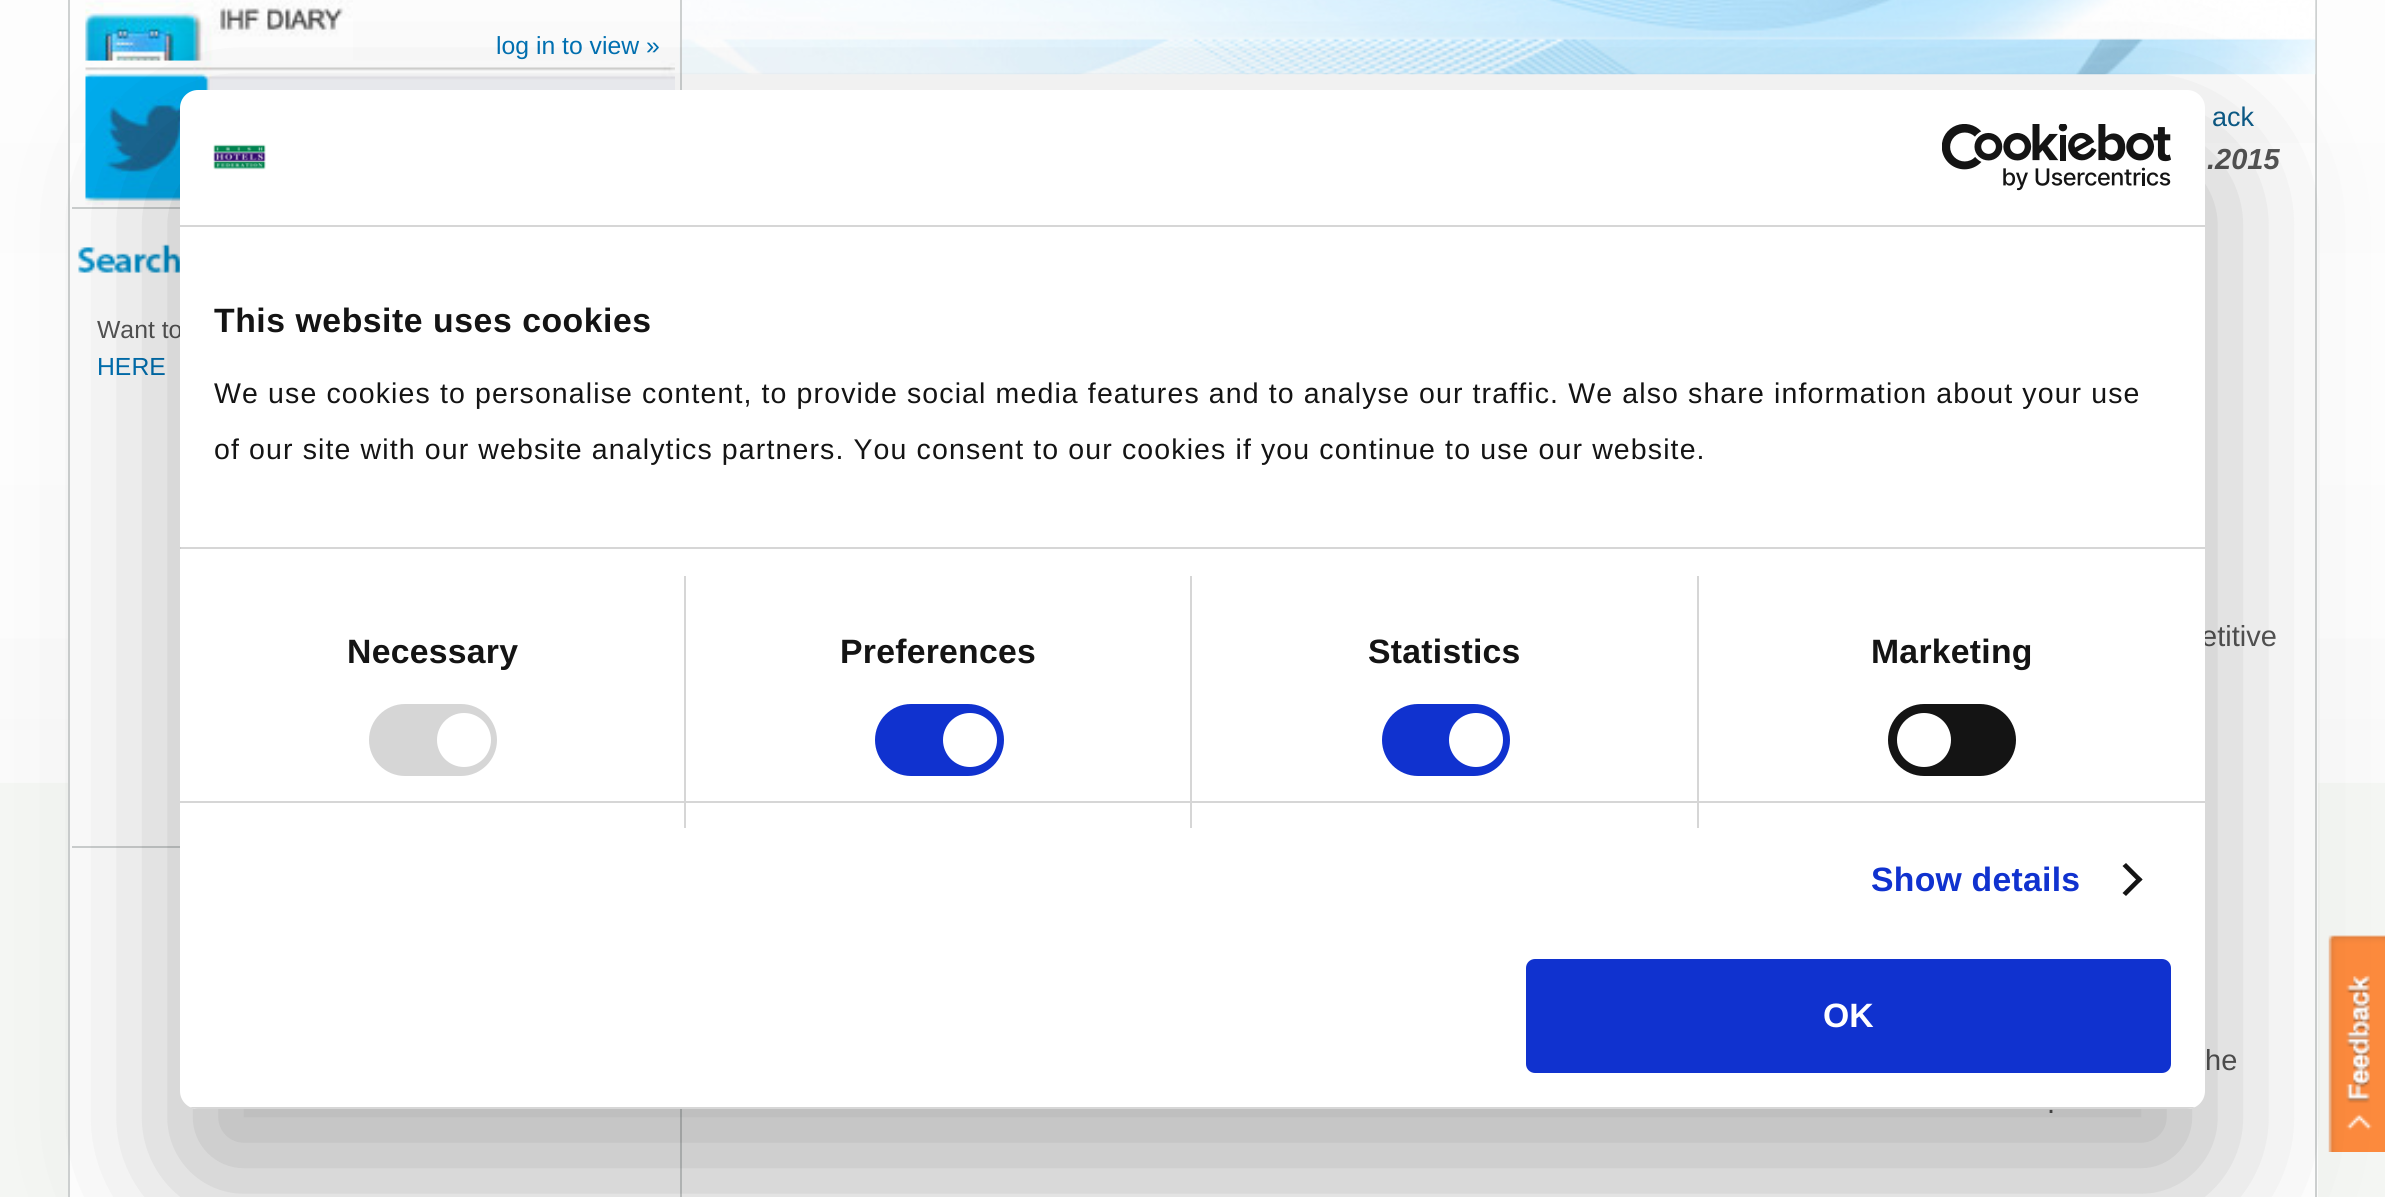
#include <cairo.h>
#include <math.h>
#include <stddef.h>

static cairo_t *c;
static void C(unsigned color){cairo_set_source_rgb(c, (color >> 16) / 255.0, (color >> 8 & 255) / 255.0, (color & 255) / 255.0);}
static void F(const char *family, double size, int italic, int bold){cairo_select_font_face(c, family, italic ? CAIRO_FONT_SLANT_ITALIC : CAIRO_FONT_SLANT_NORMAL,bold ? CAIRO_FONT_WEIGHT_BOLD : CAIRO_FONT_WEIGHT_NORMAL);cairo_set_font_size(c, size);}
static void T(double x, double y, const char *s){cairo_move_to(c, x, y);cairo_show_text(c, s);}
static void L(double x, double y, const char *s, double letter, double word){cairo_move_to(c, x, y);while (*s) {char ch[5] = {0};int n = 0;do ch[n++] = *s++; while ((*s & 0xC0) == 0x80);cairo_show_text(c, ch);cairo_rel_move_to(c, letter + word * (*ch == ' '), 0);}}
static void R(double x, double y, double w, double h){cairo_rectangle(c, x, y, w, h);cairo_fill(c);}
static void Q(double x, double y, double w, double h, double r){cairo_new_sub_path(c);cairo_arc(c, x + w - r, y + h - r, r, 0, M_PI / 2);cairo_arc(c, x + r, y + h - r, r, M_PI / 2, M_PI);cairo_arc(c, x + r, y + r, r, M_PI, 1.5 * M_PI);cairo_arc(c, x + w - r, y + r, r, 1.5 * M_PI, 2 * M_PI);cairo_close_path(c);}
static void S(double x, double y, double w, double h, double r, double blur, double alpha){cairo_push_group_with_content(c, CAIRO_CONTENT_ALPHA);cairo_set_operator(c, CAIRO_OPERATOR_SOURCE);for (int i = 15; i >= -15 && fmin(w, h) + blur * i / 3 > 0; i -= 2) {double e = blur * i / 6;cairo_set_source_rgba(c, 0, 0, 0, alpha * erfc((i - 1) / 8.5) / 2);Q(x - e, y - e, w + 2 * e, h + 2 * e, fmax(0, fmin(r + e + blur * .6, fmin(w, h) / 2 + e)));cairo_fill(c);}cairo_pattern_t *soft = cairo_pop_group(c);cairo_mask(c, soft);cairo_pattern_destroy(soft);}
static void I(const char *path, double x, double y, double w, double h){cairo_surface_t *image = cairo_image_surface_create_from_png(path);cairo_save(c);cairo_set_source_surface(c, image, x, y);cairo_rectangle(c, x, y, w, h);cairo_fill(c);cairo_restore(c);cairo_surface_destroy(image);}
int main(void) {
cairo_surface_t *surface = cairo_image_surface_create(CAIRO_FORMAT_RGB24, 2385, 1197);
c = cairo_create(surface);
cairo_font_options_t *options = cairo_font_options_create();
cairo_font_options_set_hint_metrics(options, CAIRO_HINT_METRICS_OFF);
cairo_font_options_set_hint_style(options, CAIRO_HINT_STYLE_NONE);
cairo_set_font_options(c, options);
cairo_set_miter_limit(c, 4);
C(0xf4f6f3);
cairo_paint(c);
I("1.png",0,0,2385,783);
C(0xffffff);
R(70,143,2248,1054);
C(0xced1d1);
R(2315,0,2,1197);
R(68,0,2,1197);
I("2.png",85,0,268,61);
F("Liberation Sans",24.75,0,0);
C(0x0071b3);
T(496,54,"log in to view »");
I("3.png",85,60,590,145);
I("4.png",78,231,102,63);
C(0xced1d1);
R(72,207,108,2);
R(72,846,108,2);
C(0x555555);
T(97,338,"Want to");
C(0x0071b3);
T(97,375,"HERE");
I("5.png",679,0,1637,75);
C(0xced1d1);
R(680,0,2,1197);
F("Liberation Sans",27,0,0);
C(0x0c5c89);
T(2212,126,"ack");
F("Liberation Sans",29,1,1);
C(0x555555);
T(2207,169,".2015");
F("Liberation Sans",29,0,0);
T(2201,646,"etitive");
T(2205,1070,"he");
T(2047,1113,".");
I("8.png",2328,935,57,217);
C(0x000000);
S(180,162,2025,1019,18,76.5,.3);
C(0xffffff);
Q(180,90,2025,1019,18);
cairo_fill(c);
C(0xd6d6d6);
R(180,225,2025,2);
I("6.png",213,144,53,26);
I("7.png",1942,124,229,67);
R(180,547,2025,2);
F("Liberation Sans",33.75,0,1);
C(0x141414);
L(214,332,"This website uses cookies",.55,0);
F("Liberation Sans",28.5,0,0);
L(214,403,"We use cookies to personalise content, to provide social media features and to analyse our traffic. We also share information about your use",1.12,0);
L(214,459,"of our site with our website analytics partners. You consent to our cookies if you continue to use our website.",1.12,0);
C(0xd6d6d6);
R(180,801,2025,2);
C(0xcccccc);
R(180,547,1,2);
C(0xd6d6d6);
R(684,576,2,252);
F("Liberation Sans",33.75,0,1);
C(0x141414);
L(347,663,"Necessary",.25,0);
C(0xd6d6d6);
Q(369,704,128,72,36);
cairo_fill(c);
C(0xffffff);
cairo_arc(c,464,740,27,0,2 * M_PI);
cairo_fill(c);
C(0xd6d6d6);
R(1190,576,2,252);
C(0x141414);
L(840,663,"Preferences",.25,0);
C(0x1032cf);
Q(875,704,129,72,36);
cairo_fill(c);
C(0xffffff);
cairo_arc(c,970,740,27,0,2 * M_PI);
cairo_fill(c);
C(0xd6d6d6);
R(1697,576,2,252);
C(0x141414);
L(1368,663,"Statistics",.25,0);
C(0x1032cf);
Q(1382,704,128,72,36);
cairo_fill(c);
C(0xffffff);
cairo_arc(c,1476,740,27,0,2 * M_PI);
cairo_fill(c);
C(0x141414);
L(1871,663,"Marketing",.25,0);
Q(1888,704,128,72,36);
cairo_fill(c);
C(0xffffff);
cairo_arc(c,1924,740,27,0,2 * M_PI);
cairo_fill(c);
C(0x1032cf);
L(1871,891,"Show details",.25,0);
C(0x141414);
cairo_new_path(c);
cairo_move_to(c,2126,863);
cairo_line_to(c,2142.5,879.5);
cairo_line_to(c,2139,882.5);
cairo_line_to(c,2122.5,866);
cairo_close_path(c);
cairo_fill(c);
cairo_new_path(c);
cairo_move_to(c,2139,876.5);
cairo_line_to(c,2142.5,879.5);
cairo_line_to(c,2126,896);
cairo_line_to(c,2122.5,893);
cairo_close_path(c);
cairo_fill(c);
cairo_save(c);
Q(180,90,2025,1019,18);
cairo_clip(c);
C(0xd6d6d6);
R(190,1107,2005,2);
cairo_restore(c);
C(0x1032cf);
Q(1528.5,961.5,640,109,6.5);
cairo_fill_preserve(c);
cairo_set_line_width(c,5);
cairo_stroke(c);
C(0xffffff);
T(1823,1027,"OK");
cairo_surface_write_to_png(surface, "o.png");
cairo_font_options_destroy(options);
cairo_destroy(c);
cairo_surface_destroy(surface);
return 0;
}
